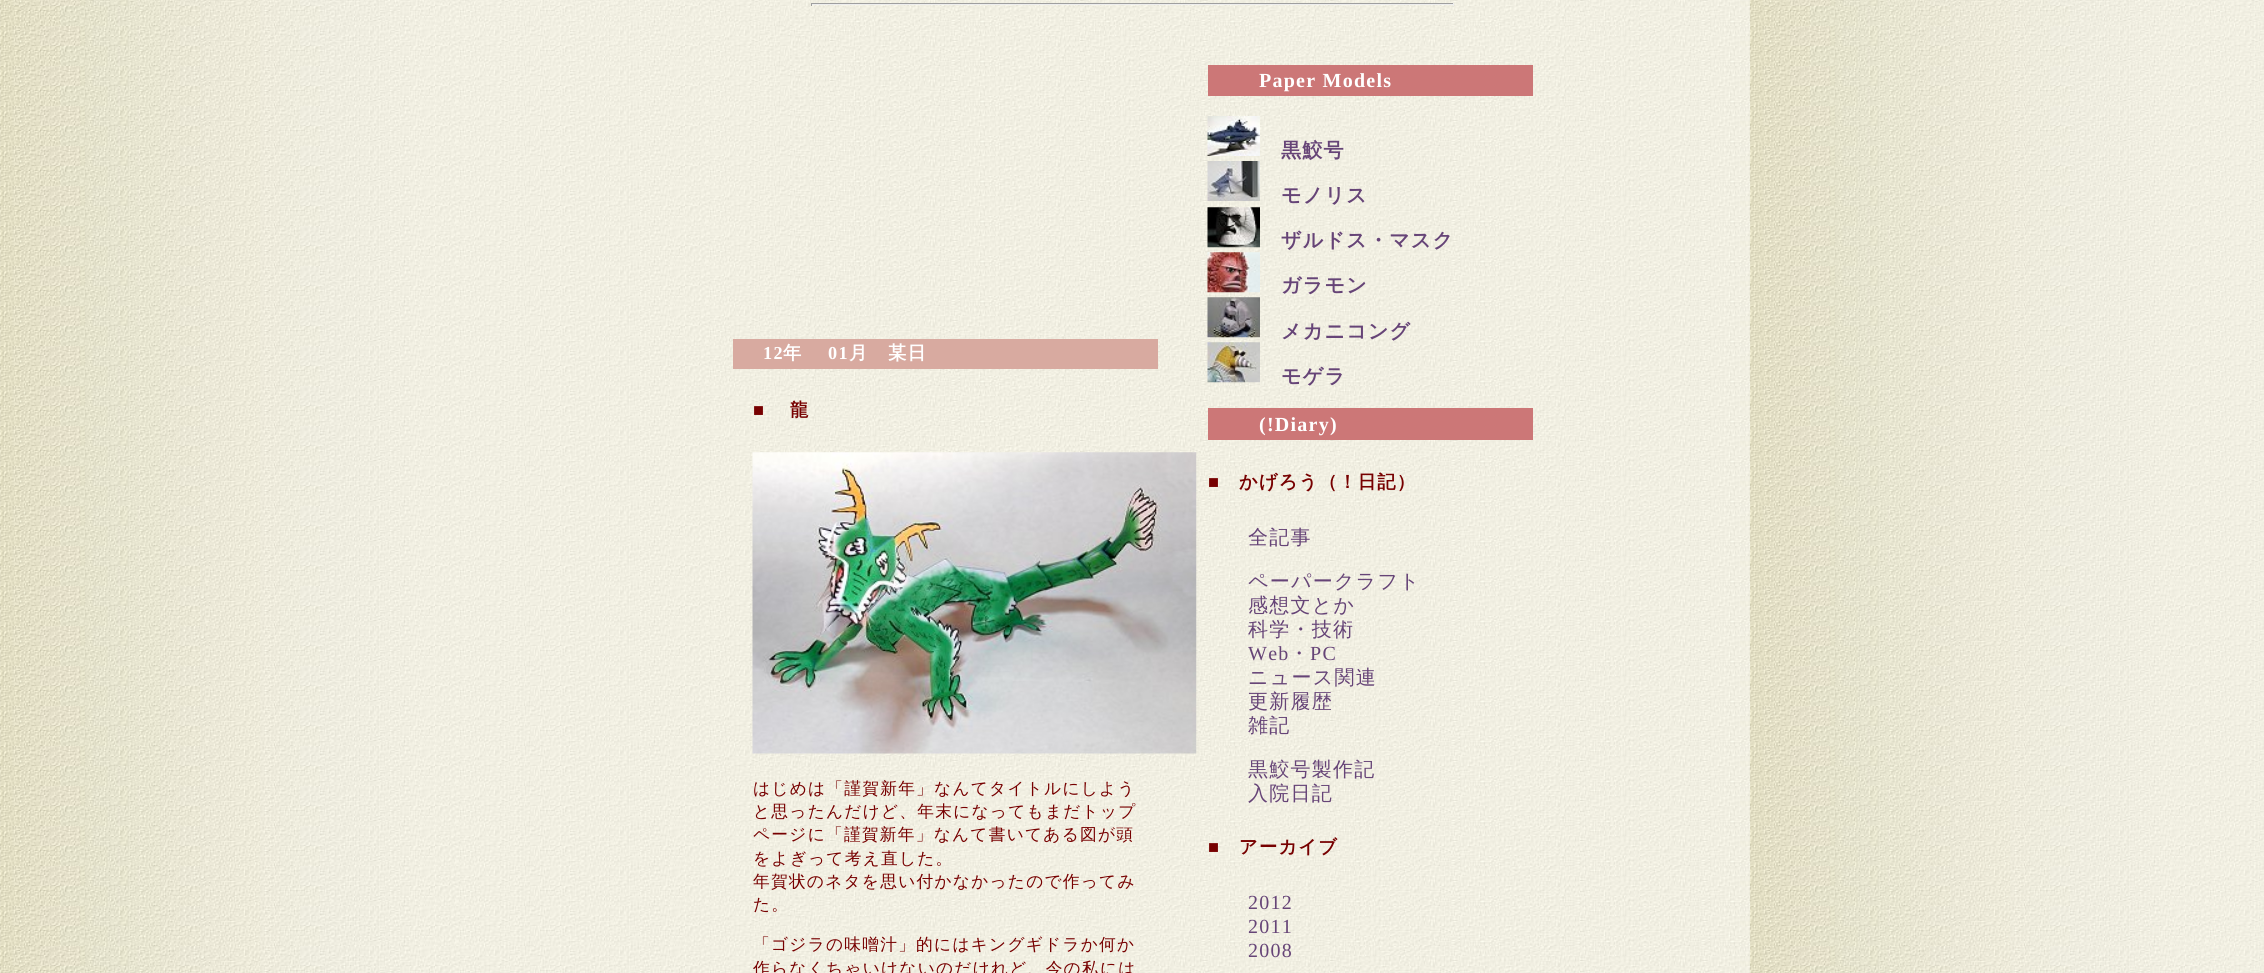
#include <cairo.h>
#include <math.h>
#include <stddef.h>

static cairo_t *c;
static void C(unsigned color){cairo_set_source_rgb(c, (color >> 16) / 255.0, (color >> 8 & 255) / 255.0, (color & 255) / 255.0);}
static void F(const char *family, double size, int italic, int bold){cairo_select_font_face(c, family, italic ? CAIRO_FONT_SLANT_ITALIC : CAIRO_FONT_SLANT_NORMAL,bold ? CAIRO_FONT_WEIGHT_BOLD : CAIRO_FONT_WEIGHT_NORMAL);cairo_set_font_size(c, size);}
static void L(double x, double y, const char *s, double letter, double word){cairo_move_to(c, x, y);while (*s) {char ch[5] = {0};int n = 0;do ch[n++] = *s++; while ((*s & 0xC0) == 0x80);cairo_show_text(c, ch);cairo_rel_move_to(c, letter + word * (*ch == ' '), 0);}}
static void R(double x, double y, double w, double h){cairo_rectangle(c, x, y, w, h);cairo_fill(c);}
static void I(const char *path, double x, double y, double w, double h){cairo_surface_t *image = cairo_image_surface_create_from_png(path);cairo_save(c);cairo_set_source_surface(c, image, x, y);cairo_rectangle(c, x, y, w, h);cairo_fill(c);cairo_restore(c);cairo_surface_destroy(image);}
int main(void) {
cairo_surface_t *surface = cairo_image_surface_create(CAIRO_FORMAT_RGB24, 2264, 973);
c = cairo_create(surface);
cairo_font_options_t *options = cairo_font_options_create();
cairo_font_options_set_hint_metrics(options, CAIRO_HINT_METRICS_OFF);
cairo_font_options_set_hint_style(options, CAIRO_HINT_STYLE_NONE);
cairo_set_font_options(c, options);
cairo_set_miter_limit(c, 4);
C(0xffffff);
cairo_paint(c);
I("1.png",0,0,2264,973);
C(0x9f9f9f);
R(811,3,643,1);
C(0xeeeeee);
R(1453,3,1,3);
R(811,4,643,1);
C(0x9f9f9f);
R(811,3,1,3);
C(0xd8aaa0);
R(733,339,425,30);
F("Liberation Serif",18.25,0,1);
C(0xffffff);
L(763,359,"12",1.25,0);
F("WenQuanYi Zen Hei",18.25,0,1);
L(783,359,"年",1.25,0);
F("Liberation Serif",18.25,0,1);
L(828,359,"01",1.25,0);
F("WenQuanYi Zen Hei",18.25,0,1);
L(849,359,"月　某日",1.25,0);
F("Liberation Serif",18.25,0,1);
C(0x770000);
L(753,416,"■",1.25,0);
F("WenQuanYi Zen Hei",18.25,0,1);
L(790,416,"龍",1.25,0);
I("2.png",752,452,445,302);
F("WenQuanYi Zen Hei Medium",16.7,0,0);
L(753,794,"はじめは「謹賀新年」なんてタイトルにしよう",1.25,0);
L(753,817,"と思ったんだけど、年末になってもまだトップ",1.25,0);
L(753,840,"ページに「謹賀新年」なんて書いてある図が頭",1.25,0);
L(753,864,"をよぎって考え直した。",1.25,0);
L(753,887,"年賀状のネタを思い付かなかったので作ってみ",1.25,0);
L(753,910,"た。",1.25,0);
L(753,950,"「ゴジラの味噌汁」的にはキングギドラか何か",1.25,0);
L(753,974,"作らなくちゃいけないのだけれど、今の私には",1.25,0);
C(0xcc7777);
R(1208,65,325,31);
F("Liberation Serif",20,0,1);
C(0xffffff);
L(1259,87,"Paper Models",1.25,0);
I("3.png",1207,116,53,40);
F("WenQuanYi Zen Hei",20,0,1);
C(0x664477);
L(1281,157,"黒鮫号",1.25,0);
I("4.png",1207,161,53,40);
L(1281,202,"モノリス",1.25,0);
I("5.png",1207,207,53,41);
L(1281,247,"ザルドス・マスク",1.25,0);
I("6.png",1207,252,53,41);
L(1281,292,"ガラモン",1.25,0);
I("7.png",1207,297,53,41);
L(1281,338,"メカニコング",1.25,0);
I("8.png",1207,342,53,41);
L(1281,383,"モゲラ",1.25,0);
C(0xcc7777);
R(1208,408,325,32);
F("Liberation Serif",20,0,1);
C(0xffffff);
L(1259,431,"(!Diary)",1.25,0);
F("Liberation Serif",18.25,0,1);
C(0x770000);
L(1208,488,"■",1.25,0);
F("WenQuanYi Zen Hei",18.25,0,1);
L(1239,488,"かげろう（！日記）",1.25,0);
F("WenQuanYi Zen Hei Medium",20,0,0);
C(0x664477);
L(1248,544,"全記事",1.25,0);
L(1248,588,"ペーパークラフト",1.25,0);
L(1248,612,"感想文とか",1.25,0);
L(1248,636,"科学・技術",1.25,0);
F("Liberation Serif",20,0,0);
L(1248,660,"Web",1.25,0);
F("WenQuanYi Zen Hei Medium",20,0,0);
L(1289,660,"・",1.25,0);
F("Liberation Serif",20,0,0);
L(1310,660,"PC",1.25,0);
F("WenQuanYi Zen Hei Medium",20,0,0);
L(1248,684,"ニュース関連",1.25,0);
L(1248,708,"更新履歴",1.25,0);
L(1248,732,"雑記",1.25,0);
L(1248,776,"黒鮫号製作記",1.25,0);
L(1248,800,"入院日記",1.25,0);
F("Liberation Serif",18.25,0,1);
C(0x770000);
L(1208,853,"■",1.25,0);
F("WenQuanYi Zen Hei",18.25,0,1);
L(1239,853,"アーカイブ",1.25,0);
F("Liberation Serif",20,0,0);
C(0x664477);
L(1248,909,"2012",1.25,0);
L(1248,933,"2011",1.25,0);
L(1248,957,"2008",1.25,0);
cairo_surface_write_to_png(surface, "o.png");
cairo_font_options_destroy(options);
cairo_destroy(c);
cairo_surface_destroy(surface);
return 0;
}
